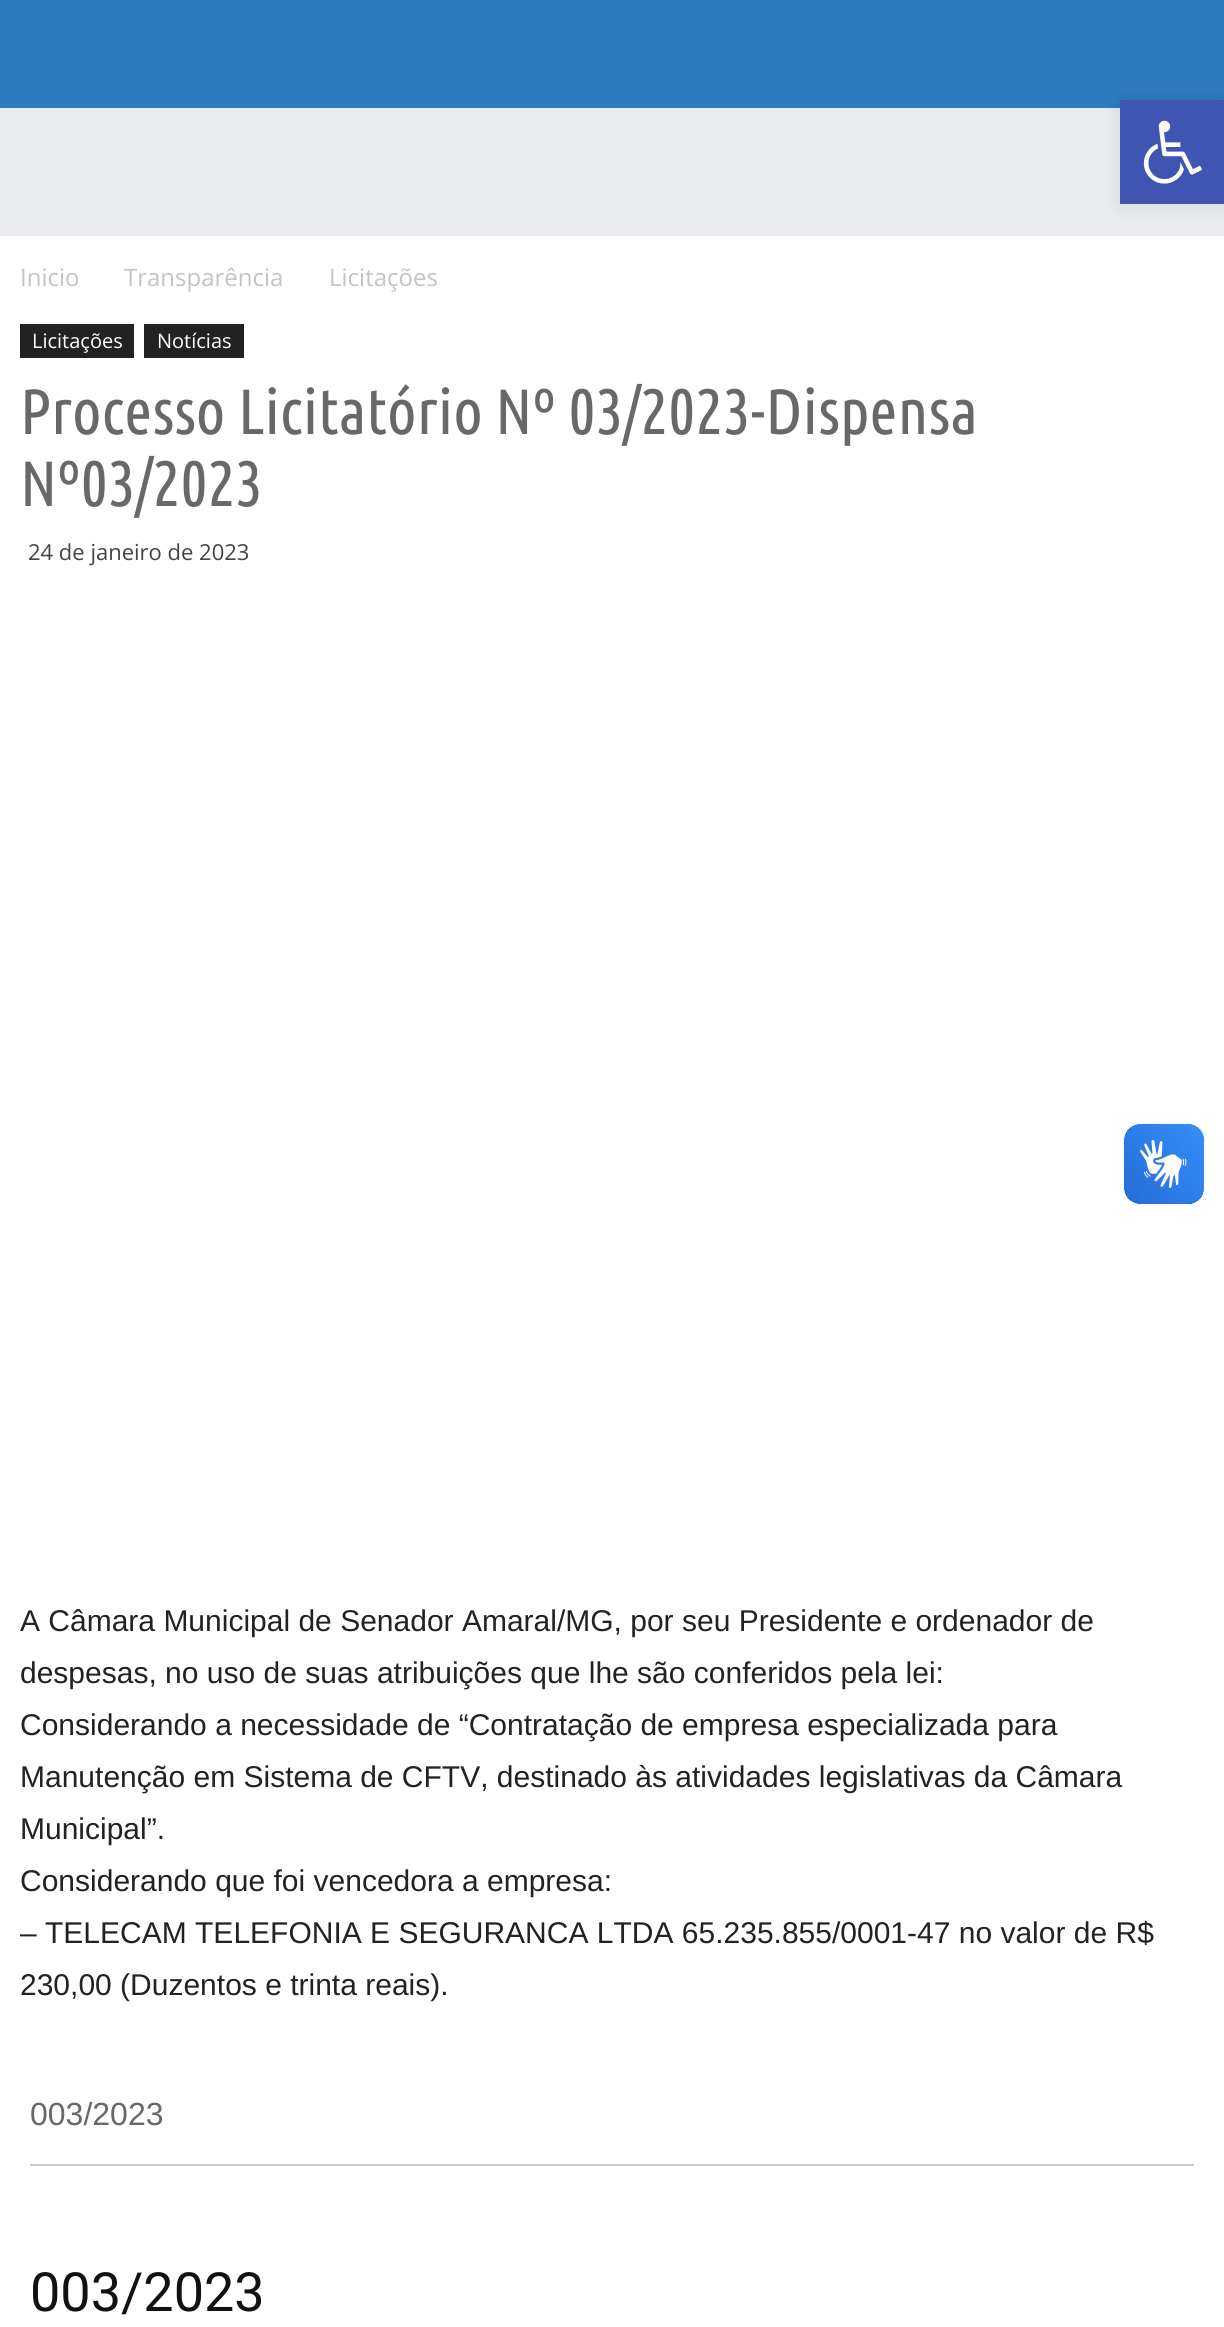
#include <cairo.h>
#include <math.h>
#include <stddef.h>

static cairo_t *c;
static void C(unsigned color){cairo_set_source_rgb(c, (color >> 16) / 255.0, (color >> 8 & 255) / 255.0, (color & 255) / 255.0);}
static void F(const char *family, double size, int italic, int bold){cairo_select_font_face(c, family, italic ? CAIRO_FONT_SLANT_ITALIC : CAIRO_FONT_SLANT_NORMAL,bold ? CAIRO_FONT_WEIGHT_BOLD : CAIRO_FONT_WEIGHT_NORMAL);cairo_set_font_size(c, size);}
static void T(double x, double y, const char *s){cairo_move_to(c, x, y);cairo_show_text(c, s);}
static void R(double x, double y, double w, double h){cairo_rectangle(c, x, y, w, h);cairo_fill(c);}
static void Q(double x, double y, double w, double h, double r){cairo_new_sub_path(c);cairo_arc(c, x + w - r, y + h - r, r, 0, M_PI / 2);cairo_arc(c, x + r, y + h - r, r, M_PI / 2, M_PI);cairo_arc(c, x + r, y + r, r, M_PI, 1.5 * M_PI);cairo_arc(c, x + w - r, y + r, r, 1.5 * M_PI, 2 * M_PI);cairo_close_path(c);}
static void S(double x, double y, double w, double h, double r, double blur, double alpha){cairo_push_group_with_content(c, CAIRO_CONTENT_ALPHA);cairo_set_operator(c, CAIRO_OPERATOR_SOURCE);for (int i = 15; i >= -15 && fmin(w, h) + blur * i / 3 > 0; i -= 2) {double e = blur * i / 6;cairo_set_source_rgba(c, 0, 0, 0, alpha * erfc((i - 1) / 8.5) / 2);Q(x - e, y - e, w + 2 * e, h + 2 * e, fmax(0, fmin(r + e + blur * .6, fmin(w, h) / 2 + e)));cairo_fill(c);}cairo_pattern_t *soft = cairo_pop_group(c);cairo_mask(c, soft);cairo_pattern_destroy(soft);}
static void I(const char *path, double x, double y, double w, double h){cairo_surface_t *image = cairo_image_surface_create_from_png(path);cairo_save(c);cairo_set_source_surface(c, image, x, y);cairo_rectangle(c, x, y, w, h);cairo_fill(c);cairo_restore(c);cairo_surface_destroy(image);}
int main(void) {
cairo_surface_t *surface = cairo_image_surface_create(CAIRO_FORMAT_RGB24, 1224, 2327);
c = cairo_create(surface);
cairo_font_options_t *options = cairo_font_options_create();
cairo_font_options_set_hint_metrics(options, CAIRO_HINT_METRICS_OFF);
cairo_font_options_set_hint_style(options, CAIRO_HINT_STYLE_NONE);
cairo_set_font_options(c, options);
cairo_set_miter_limit(c, 4);
C(0xffffff);
cairo_paint(c);
C(0x2d7bbf);
R(0,0,1224,108);
C(0xe9ebee);
R(0,108,1224,128);
C(0x000000);
S(1120,100,104,104,0,10,.1);
C(0x4054b2);
R(1120,100,104,104);
I("1.png",1143,120,59,64);
F("Open Sans",24,0,0);
C(0xc3c3c3);
T(20,286,"Inicio");
T(124,286,"Transparência");
T(329,286,"Licitações");
C(0x222222);
R(20,324,114,34);
F("Open Sans",20,0,0);
C(0xffffff);
T(32,348,"Licitações");
C(0x222222);
R(144,324,100,34);
C(0xffffff);
T(157,348,"Notícias");
F("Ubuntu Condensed",64,0,0);
C(0x686868);
T(20,434,"Processo Licitatório Nº 03/2023-Dispensa");
T(20,506,"Nº03/2023");
F("Open Sans",22,0,0);
C(0x444444);
T(28,560,"24 de janeiro de 2023");
F("Liberation Sans",30,0,0);
C(0x222222);
T(20,1631,"A Câmara Municipal de Senador Amaral/MG, por seu Presidente e ordenador de");
T(20,1683,"despesas, no uso de suas atribuições que lhe são conferidos pela lei:");
T(20,1735,"Considerando a necessidade de “Contratação de empresa especializada para");
T(20,1787,"Manutenção em Sistema de CFTV, destinado às atividades legislativas da Câmara");
T(20,1839,"Municipal”.");
T(20,1891,"Considerando que foi vencedora a empresa:");
T(20,1943,"– TELECAM TELEFONIA E SEGURANCA LTDA 65.235.855/0001-47 no valor de R$");
T(20,1995,"230,00 (Duzentos e trinta reais).");
C(0xcccccc);
R(30,2164,1164,2);
F("Liberation Sans",32,0,0);
C(0x686868);
T(30,2125,"003/2023");
F("Roboto",54,0,0);
C(0x111111);
T(30,2311,"003/2023");
I("2.png",1124,1124,80,80);
I("3.png",1124,1124,80,80);
cairo_surface_write_to_png(surface, "o.png");
cairo_font_options_destroy(options);
cairo_destroy(c);
cairo_surface_destroy(surface);
return 0;
}
